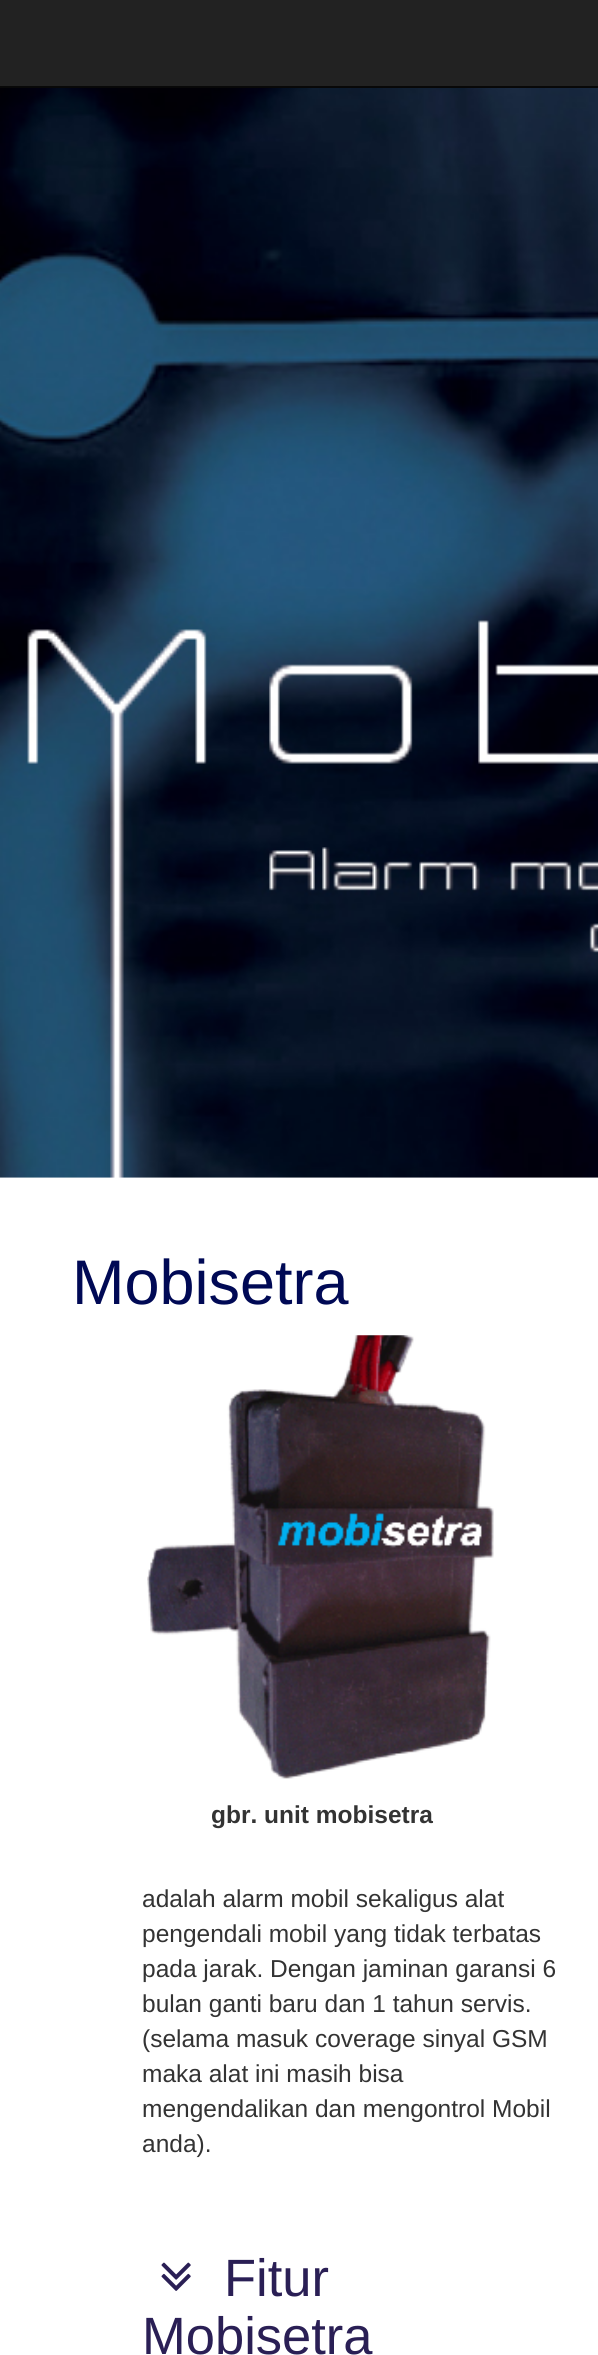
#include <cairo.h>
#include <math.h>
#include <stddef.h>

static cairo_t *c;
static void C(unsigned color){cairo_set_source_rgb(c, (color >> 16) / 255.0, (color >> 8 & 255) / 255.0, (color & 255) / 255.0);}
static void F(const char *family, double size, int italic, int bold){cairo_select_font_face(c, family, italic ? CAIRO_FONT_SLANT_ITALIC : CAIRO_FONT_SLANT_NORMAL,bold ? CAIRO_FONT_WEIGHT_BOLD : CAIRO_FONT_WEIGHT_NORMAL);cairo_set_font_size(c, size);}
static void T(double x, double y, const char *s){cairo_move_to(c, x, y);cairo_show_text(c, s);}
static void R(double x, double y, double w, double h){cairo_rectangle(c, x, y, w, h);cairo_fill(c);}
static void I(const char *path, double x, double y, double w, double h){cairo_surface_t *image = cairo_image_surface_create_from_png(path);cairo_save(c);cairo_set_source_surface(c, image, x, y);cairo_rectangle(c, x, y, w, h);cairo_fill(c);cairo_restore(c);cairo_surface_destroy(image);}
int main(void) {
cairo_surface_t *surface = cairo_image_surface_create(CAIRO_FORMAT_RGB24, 598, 2355);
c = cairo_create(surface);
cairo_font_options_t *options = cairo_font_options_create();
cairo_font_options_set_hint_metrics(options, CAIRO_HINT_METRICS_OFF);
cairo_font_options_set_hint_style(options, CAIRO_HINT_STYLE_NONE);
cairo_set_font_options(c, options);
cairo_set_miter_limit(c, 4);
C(0xffffff);
cairo_paint(c);
C(0x222222);
R(0,0,598,86);
C(0x080808);
R(0,86,598,2);
I("1.png",0,88,598,1090);
F("Liberation Sans",63,0,0);
C(0x000955);
T(72,1304,"Mobisetra");
I("2.png",147,1335,347,444);
F("Liberation Sans",24.5,0,1);
C(0x333333);
T(211,1823,"gbr. unit mobisetra");
F("Liberation Sans",24.5,0,0);
T(142,1907,"adalah alarm mobil sekaligus alat");
T(142,1942,"pengendali mobil yang tidak terbatas");
T(142,1977,"pada jarak. Dengan jaminan garansi 6");
T(142,2012,"bulan ganti baru dan 1 tahun servis.");
T(142,2047,"(selama masuk coverage sinyal GSM");
T(142,2082,"maka alat ini masih bisa");
T(142,2117,"mengendalikan dan mengontrol Mobil");
T(142,2152,"anda).");
I("3.png",161,2262,30,29);
F("Liberation Sans",52.5,0,0);
C(0x2a1f55);
T(224,2296,"Fitur");
T(142,2354,"Mobisetra");
cairo_surface_write_to_png(surface, "o.png");
cairo_font_options_destroy(options);
cairo_destroy(c);
cairo_surface_destroy(surface);
return 0;
}
